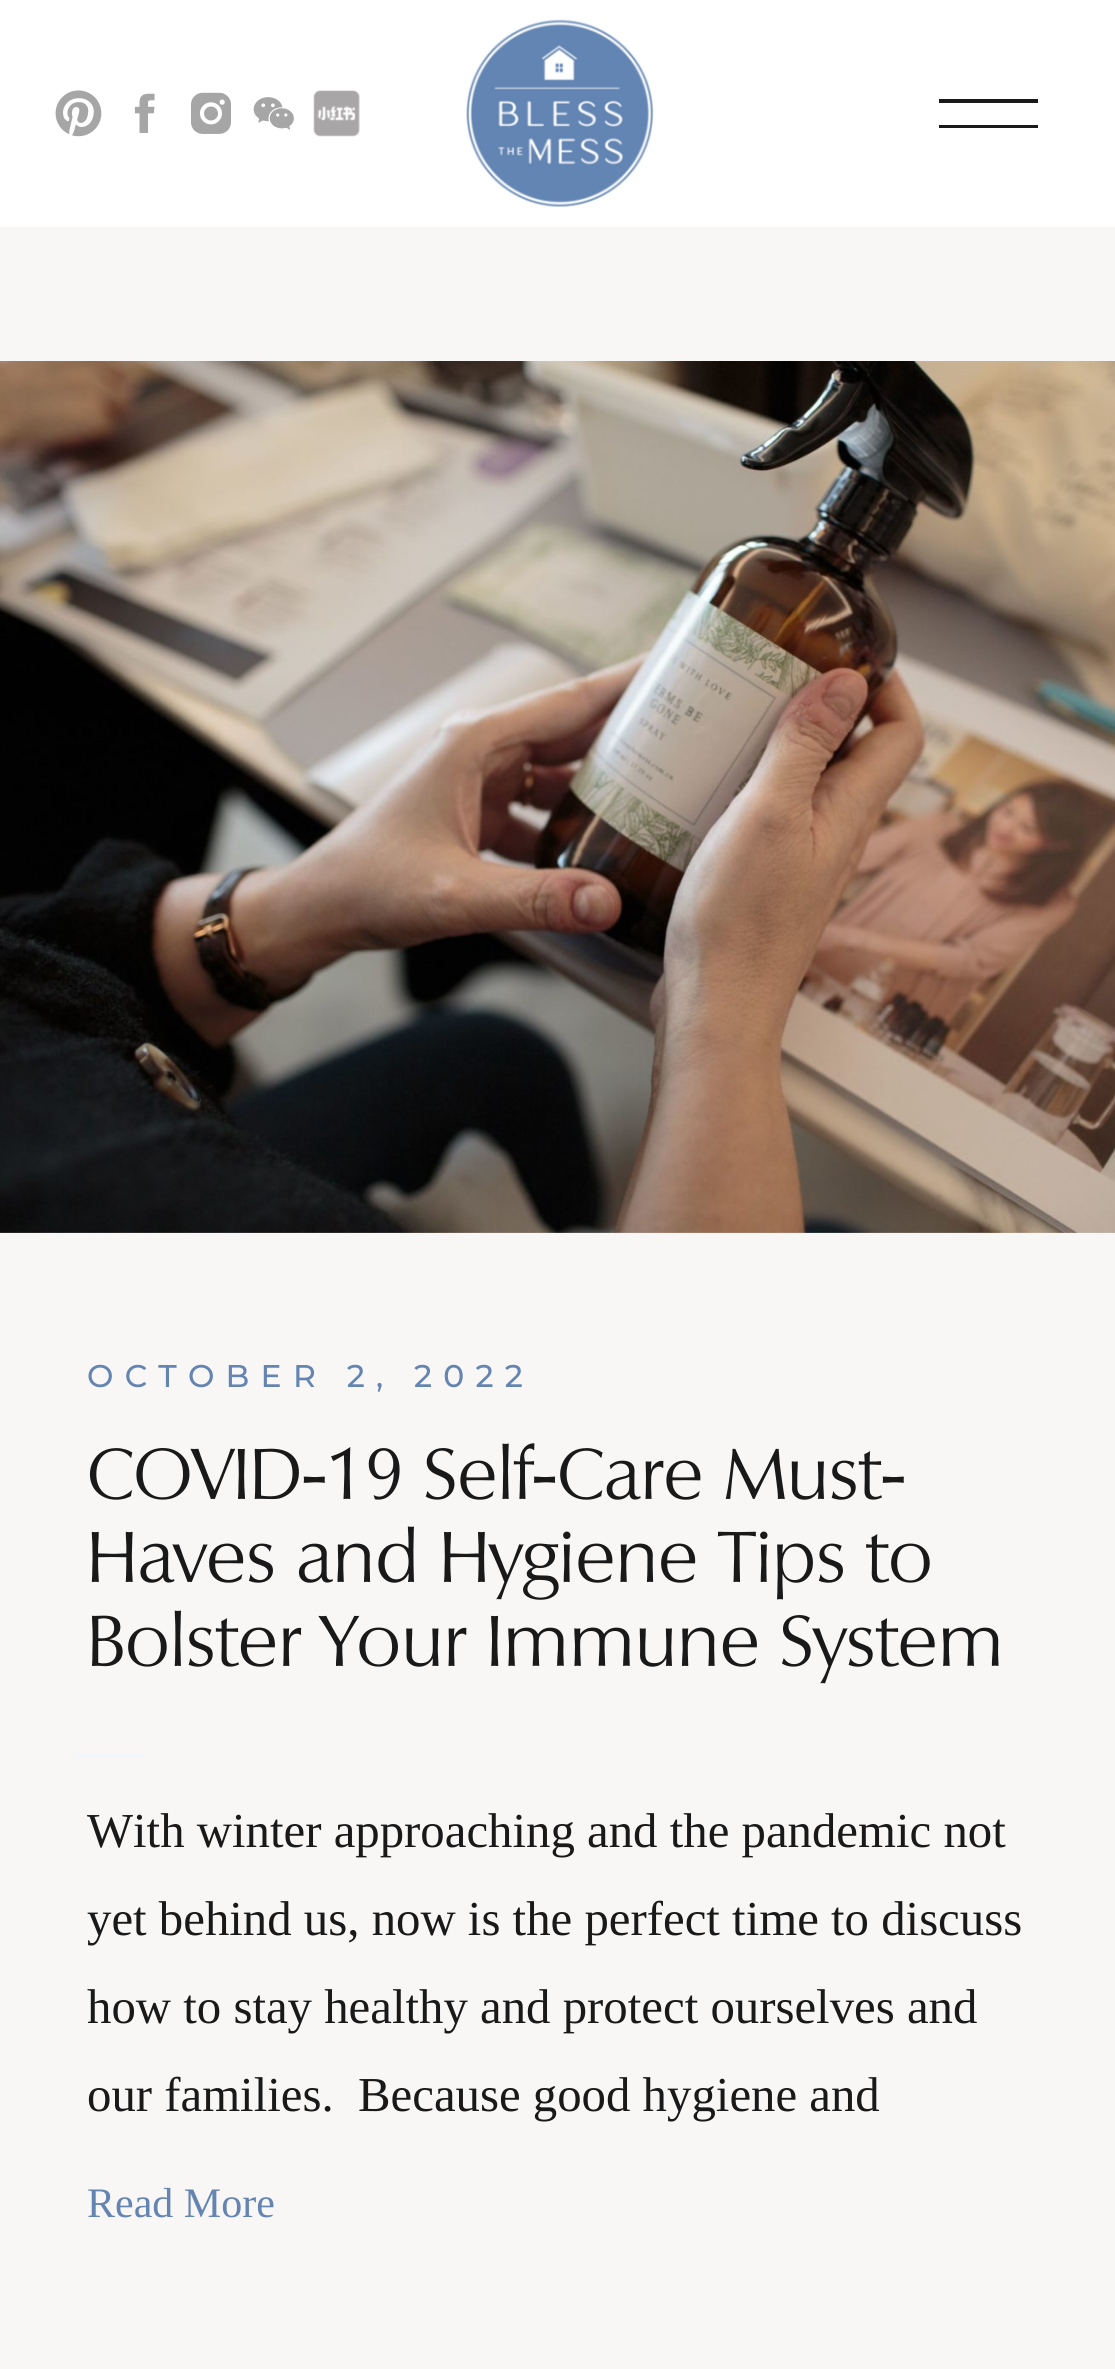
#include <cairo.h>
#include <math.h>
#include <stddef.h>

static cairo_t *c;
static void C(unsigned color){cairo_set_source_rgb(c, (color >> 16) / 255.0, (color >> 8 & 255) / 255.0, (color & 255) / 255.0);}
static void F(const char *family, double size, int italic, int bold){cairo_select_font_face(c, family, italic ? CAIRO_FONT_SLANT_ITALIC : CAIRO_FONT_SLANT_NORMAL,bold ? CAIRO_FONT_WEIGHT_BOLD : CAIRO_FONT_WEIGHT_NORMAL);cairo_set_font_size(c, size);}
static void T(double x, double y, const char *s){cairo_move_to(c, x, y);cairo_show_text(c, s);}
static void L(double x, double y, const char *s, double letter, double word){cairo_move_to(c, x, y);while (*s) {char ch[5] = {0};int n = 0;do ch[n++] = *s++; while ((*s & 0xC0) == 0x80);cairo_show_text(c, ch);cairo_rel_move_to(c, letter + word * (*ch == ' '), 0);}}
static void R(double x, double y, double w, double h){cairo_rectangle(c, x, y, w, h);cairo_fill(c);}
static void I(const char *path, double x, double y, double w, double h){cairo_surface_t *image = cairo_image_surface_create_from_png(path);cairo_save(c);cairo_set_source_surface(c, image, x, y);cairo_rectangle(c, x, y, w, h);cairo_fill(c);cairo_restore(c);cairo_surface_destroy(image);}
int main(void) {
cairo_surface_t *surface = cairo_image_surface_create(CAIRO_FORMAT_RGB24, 1115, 2369);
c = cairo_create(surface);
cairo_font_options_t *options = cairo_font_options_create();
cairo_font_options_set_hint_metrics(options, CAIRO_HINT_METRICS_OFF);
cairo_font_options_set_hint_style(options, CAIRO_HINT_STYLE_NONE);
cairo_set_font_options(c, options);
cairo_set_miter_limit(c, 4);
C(0xffffff);
cairo_paint(c);
I("1.png",55,90,47,47);
I("2.png",134,93,21,40);
I("3.png",191,92,40,42);
I("4.png",253,97,41,33);
I("5.png",313,90,47,47);
I("6.png",466,19,188,188);
C(0x19191a);
R(939,99,99,4);
R(939,125,99,3);
C(0xf8f7f6);
R(0,227,1115,2142);
I("7.png",0,361,1115,872);
F("Montserrat Medium",31.4,0,0);
C(0x6484b1);
L(87,1387,"OCTOBER 2, 2022",11.25,0);
F("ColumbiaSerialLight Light",69.75,0,0);
C(0x19191a);
T(87,1499,"COVID-19 Self-Care Must-");
T(87,1582,"Haves and Hygiene Tips to");
T(87,1666,"Bolster Your Immune System");
C(0xf4f6f9);
R(74,1753,70,5);
F("Liberation Serif",48.8,0,0);
C(0x19191a);
T(87,1847,"With winter approaching and the pandemic not");
T(87,1935,"yet behind us, now is the perfect time to discuss");
T(87,2023,"how to stay healthy and protect ourselves and");
T(87,2111,"our families.  Because good hygiene and");
F("Liberation Serif",42,0,0);
C(0x6484b1);
T(87,2217,"Read More");
cairo_surface_write_to_png(surface, "o.png");
cairo_font_options_destroy(options);
cairo_destroy(c);
cairo_surface_destroy(surface);
return 0;
}
